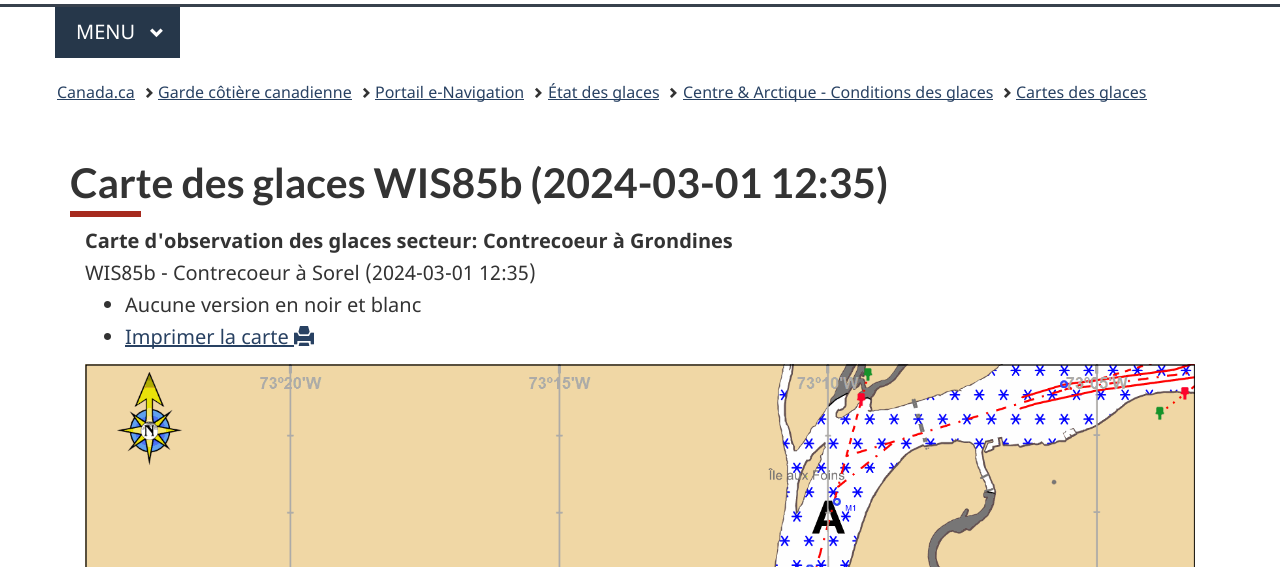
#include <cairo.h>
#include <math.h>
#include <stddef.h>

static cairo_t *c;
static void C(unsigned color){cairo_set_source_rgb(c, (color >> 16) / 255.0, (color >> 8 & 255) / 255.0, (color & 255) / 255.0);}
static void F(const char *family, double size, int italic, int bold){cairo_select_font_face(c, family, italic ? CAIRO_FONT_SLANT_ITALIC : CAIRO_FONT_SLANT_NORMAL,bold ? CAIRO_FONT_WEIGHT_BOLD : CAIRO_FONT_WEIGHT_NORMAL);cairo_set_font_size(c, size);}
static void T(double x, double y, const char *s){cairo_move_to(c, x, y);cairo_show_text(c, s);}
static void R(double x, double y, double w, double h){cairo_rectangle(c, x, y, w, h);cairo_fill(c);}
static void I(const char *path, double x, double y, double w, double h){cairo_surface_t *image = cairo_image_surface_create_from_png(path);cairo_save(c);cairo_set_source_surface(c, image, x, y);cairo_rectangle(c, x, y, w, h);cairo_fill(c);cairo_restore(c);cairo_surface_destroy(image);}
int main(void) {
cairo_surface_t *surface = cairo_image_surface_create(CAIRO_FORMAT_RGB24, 1280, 567);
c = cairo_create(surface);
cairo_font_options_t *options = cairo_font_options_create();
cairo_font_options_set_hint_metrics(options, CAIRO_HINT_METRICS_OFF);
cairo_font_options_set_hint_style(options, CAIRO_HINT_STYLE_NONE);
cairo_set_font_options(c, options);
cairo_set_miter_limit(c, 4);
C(0xffffff);
cairo_paint(c);
C(0x38414d);
R(0,4,1280,3);
C(0x26374a);
R(55,7,125,51);
F("Noto Sans",20,0,0);
C(0xffffff);
T(76,39,"MENU");
I("1.png",150,28,13,10);
F("Noto Sans",16,0,0);
C(0x284162);
T(57,98,"Canada.ca");
R(57,99,78,1);
I("2.png",146,87,7,11);
T(158,98,"Garde côtière canadienne");
R(158,99,194,1);
I("2.png",363,87,7,11);
R(375,99,149,1);
T(375,98,"Portail e-Navigation");
I("2.png",535,87,7,11);
R(548,99,111,1);
T(548,98,"État des glaces");
I("2.png",670,87,7,11);
R(683,99,310,1);
T(683,98,"Centre & Arctique - Conditions des glaces");
I("2.png",1004,87,7,11);
R(1016,99,131,1);
T(1016,98,"Cartes des glaces");
C(0xa62a1e);
R(70,211,71,6);
F("Lato",41,0,1);
C(0x333333);
T(70,198,"Carte des glaces WIS85b (2024-03-01 12:35)");
F("Noto Sans",20,0,1);
T(85,248,"Carte d'observation des glaces secteur: Contrecoeur à Grondines");
F("Noto Sans",20,0,0);
T(85,280,"WIS85b - Contrecoeur à Sorel (2024-03-01 12:35)");
cairo_new_path(c);
cairo_arc(c,107.5,304.5,3.5,0,2 * M_PI);
cairo_fill(c);
T(125,312,"Aucune version en noir et blanc");
cairo_new_path(c);
cairo_arc(c,107.5,336.5,3.5,0,2 * M_PI);
cairo_fill(c);
C(0x284162);
R(125,345,169,2);
T(125,344,"Imprimer la carte");
I("3.png",294,326,20,20);
I("4.png",85,364,1110,203);
cairo_surface_write_to_png(surface, "o.png");
cairo_font_options_destroy(options);
cairo_destroy(c);
cairo_surface_destroy(surface);
return 0;
}
